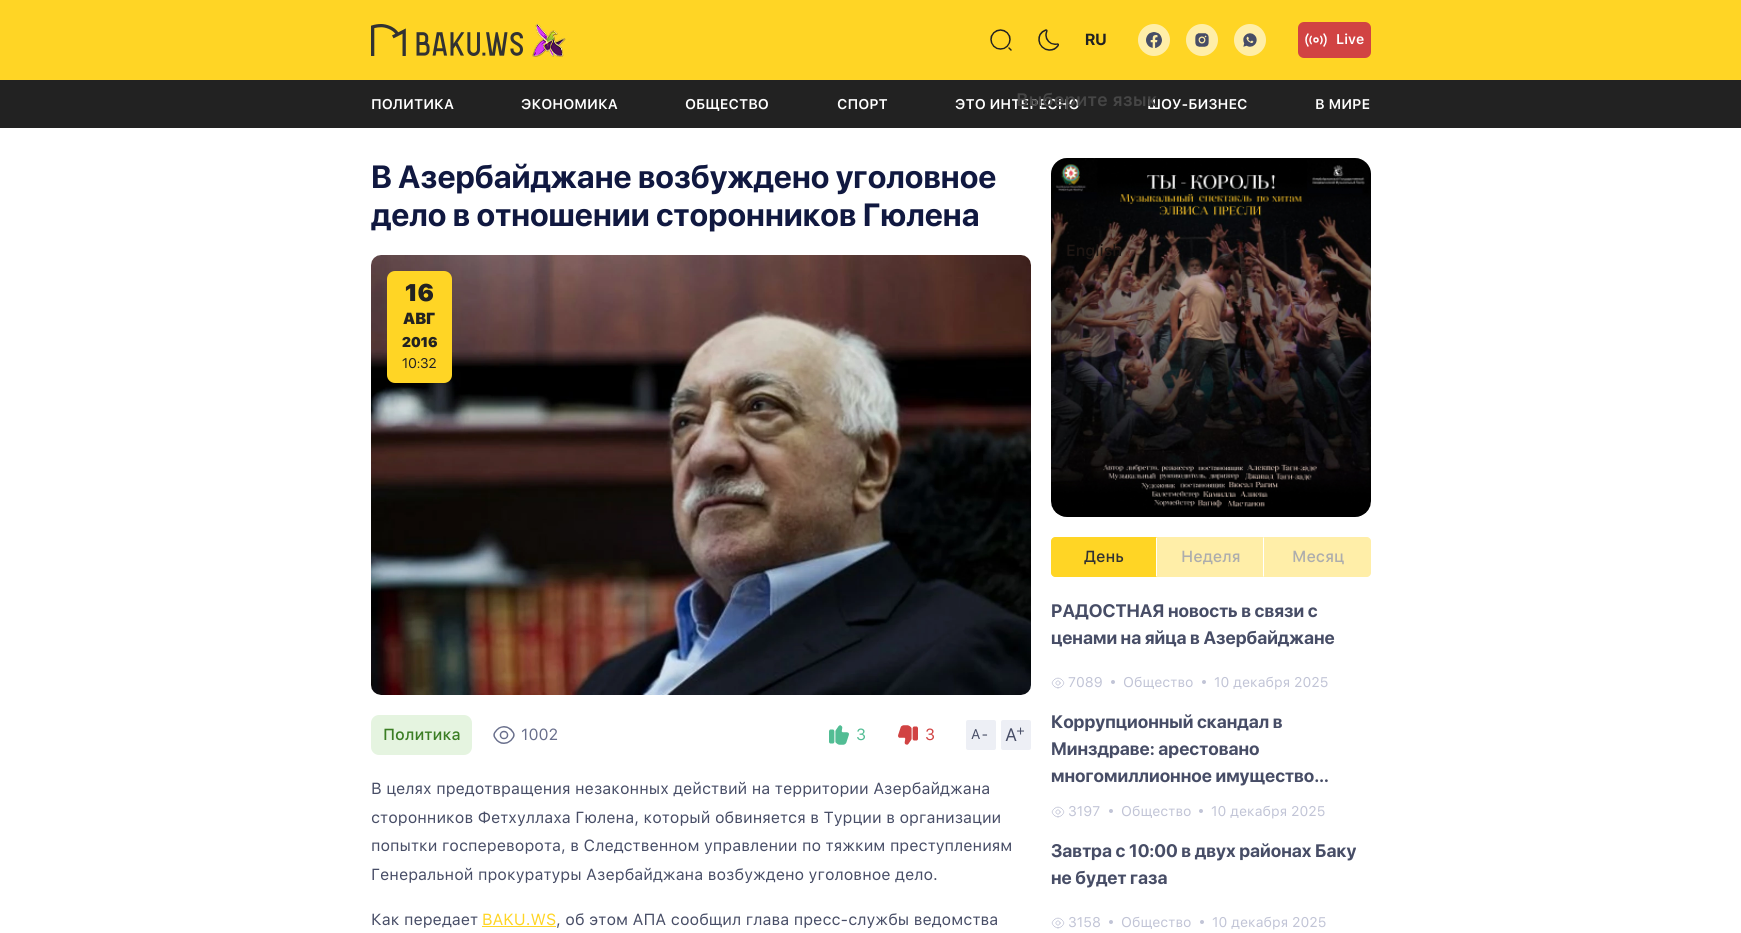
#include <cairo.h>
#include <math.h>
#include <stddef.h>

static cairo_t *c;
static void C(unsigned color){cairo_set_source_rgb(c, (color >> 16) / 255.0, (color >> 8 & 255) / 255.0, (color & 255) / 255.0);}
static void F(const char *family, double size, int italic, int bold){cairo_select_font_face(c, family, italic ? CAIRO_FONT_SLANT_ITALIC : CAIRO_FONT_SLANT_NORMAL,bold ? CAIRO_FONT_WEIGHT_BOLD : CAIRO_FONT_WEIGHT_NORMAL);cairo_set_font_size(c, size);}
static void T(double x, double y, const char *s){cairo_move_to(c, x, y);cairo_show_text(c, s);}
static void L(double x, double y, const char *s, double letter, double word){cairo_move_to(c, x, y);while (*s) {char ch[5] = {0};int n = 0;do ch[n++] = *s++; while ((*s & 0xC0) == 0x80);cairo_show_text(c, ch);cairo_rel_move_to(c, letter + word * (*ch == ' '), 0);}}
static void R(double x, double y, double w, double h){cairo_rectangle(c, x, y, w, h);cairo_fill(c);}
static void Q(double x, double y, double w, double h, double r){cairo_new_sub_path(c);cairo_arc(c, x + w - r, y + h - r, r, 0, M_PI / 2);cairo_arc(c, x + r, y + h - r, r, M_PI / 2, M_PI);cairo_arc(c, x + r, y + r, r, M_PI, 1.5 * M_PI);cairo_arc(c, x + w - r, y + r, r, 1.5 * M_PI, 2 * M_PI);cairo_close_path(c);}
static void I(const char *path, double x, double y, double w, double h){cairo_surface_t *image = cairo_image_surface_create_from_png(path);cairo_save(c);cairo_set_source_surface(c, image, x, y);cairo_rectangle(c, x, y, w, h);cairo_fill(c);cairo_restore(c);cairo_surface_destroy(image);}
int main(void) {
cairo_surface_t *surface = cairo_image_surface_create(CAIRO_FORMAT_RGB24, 1741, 933);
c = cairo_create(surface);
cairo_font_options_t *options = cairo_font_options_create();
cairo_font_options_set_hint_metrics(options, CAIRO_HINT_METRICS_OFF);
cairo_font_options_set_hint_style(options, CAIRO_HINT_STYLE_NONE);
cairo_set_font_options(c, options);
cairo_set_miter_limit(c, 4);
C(0xffffff);
cairo_paint(c);
C(0xffd525);
R(0,0,1741,80);
I("1.png",371,24,152,32);
I("2.png",532,23,34,34);
I("3.png",990,29,22,22);
I("4.png",1038,29,21,22);
C(0xffeea8);
cairo_arc(c,1154,40,16,0,2 * M_PI);
cairo_fill(c);
I("5.png",1146,32,16,16);
cairo_arc(c,1202,40,16,0,2 * M_PI);
cairo_fill(c);
I("6.png",1195,33,14,14);
cairo_arc(c,1250,40,16,0,2 * M_PI);
cairo_fill(c);
I("7.png",1243,33,14,14);
F("SF Pro Display",16,0,1);
C(0x222222);
T(1085,45,"RU");
R(0,80,1741,48);
F("SF Pro Text SemiBold",14,0,0);
C(0xffffff);
T(955,109,"ЭТО ИНТЕРЕСНО");
T(1147,109,"ШОУ-БИЗНЕС");
F("SF Pro Text SemiBold",18,0,0);
C(0x464646);
T(1016,106,"Выберите язык");
I("13.png",1051,158,320,359);
F("SF Pro Text Medium",16,0,0);
C(0x1d1512);
T(1066,256,"English");
C(0xd14343);
Q(1298,22,73,36,6);
cairo_fill(c);
I("8.png",1305,33,22,14);
F("SF Pro Text SemiBold",14,0,0);
C(0xffffff);
T(1336,44,"Live");
T(371,109,"ПОЛИТИКА");
T(521,109,"ЭКОНОМИКА");
T(685,109,"ОБЩЕСТВО");
T(837,109,"СПОРТ");
T(1315,109,"В МИРЕ");
F("SF Pro Display",32,0,1);
C(0x101840);
T(371,188,"В Азербайджане возбуждено уголовное");
T(371,226,"дело в отношении сторонников Гюлена");
I("9.png",371,255,660,440);
C(0xffd525);
Q(387,271,65,112,8);
cairo_fill(c);
F("SF Pro Display Black",24,0,0);
C(0x222222);
T(405,301,"16");
F("SF Pro Display Black",16,0,0);
T(403,324,"АВГ");
F("SF Pro Display Black",14,0,0);
T(402,347,"2016");
F("SF Pro Display",14,0,0);
T(402,368,"10:32");
C(0xe5f4e0);
Q(371,715,101,40,8);
cairo_fill(c);
F("SF Pro Text Medium",16,0,0);
C(0x3b7e24);
T(383,740,"Политика");
I("10.png",493,726,22,18);
F("SF Pro Text",16,0,0);
C(0x696f8c);
T(521,740,"1002");
I("11.png",829,725,20,20);
C(0x52bd94);
T(856,740,"3");
I("12.png",898,725,20,20);
C(0xd14343);
T(925,740,"3");
C(0xedeff5);
Q(966,720,30,30,2);
cairo_fill(c);
F("SF Pro Text",14,0,0);
C(0x474d66);
L(971,739,"A-",1,0);
C(0xedeff5);
Q(1001,720,30,30,2);
cairo_fill(c);
F("SF Pro Text",18,0,0);
C(0x474d66);
L(1005,741,"A",1,0);
F("SF Pro Text",14,0,0);
L(1016,735,"+",1,0);
F("SF Pro Text",16,0,0);
T(371,794,"В целях предотвращения незаконных действий на территории Азербайджана");
T(371,823,"сторонников Фетхуллаха Гюлена, который обвиняется в Турции в организации");
T(371,851,"попытки госпереворота, в Следственном управлении по тяжким преступлениям");
T(371,880,"Генеральной прокуратуры Азербайджана возбуждено уголовное дело.");
T(371,925,"Как передает");
C(0xffd525);
T(482,925,"BAKU.WS");
R(482,926,74,1);
C(0x474d66);
T(556,925,", об этом АПА сообщил глава пресс-службы ведомства");
C(0xffd525);
cairo_new_path(c);
cairo_move_to(c,1055,537);
cairo_line_to(c,1157,537);
cairo_line_to(c,1157,577);
cairo_line_to(c,1055,577);
cairo_curve_to(c,1053,577,1051,575,1051,573);
cairo_line_to(c,1051,541);
cairo_curve_to(c,1051,539,1053,537,1055,537);
cairo_close_path(c);
cairo_fill(c);
C(0xffffff);
cairo_new_path(c);
cairo_move_to(c,1157,537);
cairo_line_to(c,1156,538);
cairo_line_to(c,1156,576);
cairo_line_to(c,1157,577);
cairo_close_path(c);
cairo_fill(c);
F("SF Pro Text Medium",16,0,0);
C(0x323232);
T(1084,562,"День");
C(0xffeea8);
R(1157,537,107,40);
C(0xffffff);
cairo_new_path(c);
cairo_move_to(c,1264,537);
cairo_line_to(c,1264,577);
cairo_line_to(c,1263,576);
cairo_line_to(c,1263,538);
cairo_close_path(c);
cairo_fill(c);
C(0xadadad);
T(1181,562,"Неделя");
C(0xffeea8);
cairo_new_path(c);
cairo_move_to(c,1264,537);
cairo_line_to(c,1367,537);
cairo_curve_to(c,1369,537,1371,539,1371,541);
cairo_line_to(c,1371,573);
cairo_curve_to(c,1371,575,1369,577,1367,577);
cairo_line_to(c,1264,577);
cairo_close_path(c);
cairo_fill(c);
C(0xadadad);
T(1292,562,"Месяц");
F("SF Pro Display",18,0,1);
C(0x474d66);
T(1051,617,"РАДОСТНАЯ новость в связи с");
T(1051,644,"ценами на яйца в Азербайджане");
I("14.png",1051,677,14,12);
F("SF Pro Text",14,0,0);
C(0xc1c4d6);
T(1068,687,"7089");
cairo_new_path(c);
cairo_arc(c,1113,682,2,0,2 * M_PI);
cairo_fill(c);
T(1123,687,"Общество");
cairo_new_path(c);
cairo_arc(c,1204,682,2,0,2 * M_PI);
cairo_fill(c);
T(1214,687,"10 декабря 2025");
F("SF Pro Display",18,0,1);
C(0x474d66);
T(1051,728,"Коррупционный скандал в");
T(1051,755,"Минздраве: арестовано");
T(1051,782,"многомиллионное имущество…");
I("14.png",1051,806,14,12);
F("SF Pro Text",14,0,0);
C(0xc1c4d6);
T(1068,816,"3197");
cairo_new_path(c);
cairo_arc(c,1111,811,2,0,2 * M_PI);
cairo_fill(c);
T(1121,816,"Общество");
cairo_new_path(c);
cairo_arc(c,1201,811,2,0,2 * M_PI);
cairo_fill(c);
T(1211,816,"10 декабря 2025");
F("SF Pro Display",18,0,1);
C(0x474d66);
T(1051,857,"Завтра с 10:00 в двух районах Баку");
T(1051,884,"не будет газа");
I("14.png",1051,917,14,12);
F("SF Pro Text",14,0,0);
C(0xc1c4d6);
T(1068,927,"3158");
cairo_new_path(c);
cairo_arc(c,1111,922,2,0,2 * M_PI);
cairo_fill(c);
T(1121,927,"Общество");
cairo_new_path(c);
cairo_arc(c,1202,922,2,0,2 * M_PI);
cairo_fill(c);
T(1212,927,"10 декабря 2025");
cairo_surface_write_to_png(surface, "o.png");
cairo_font_options_destroy(options);
cairo_destroy(c);
cairo_surface_destroy(surface);
return 0;
}
